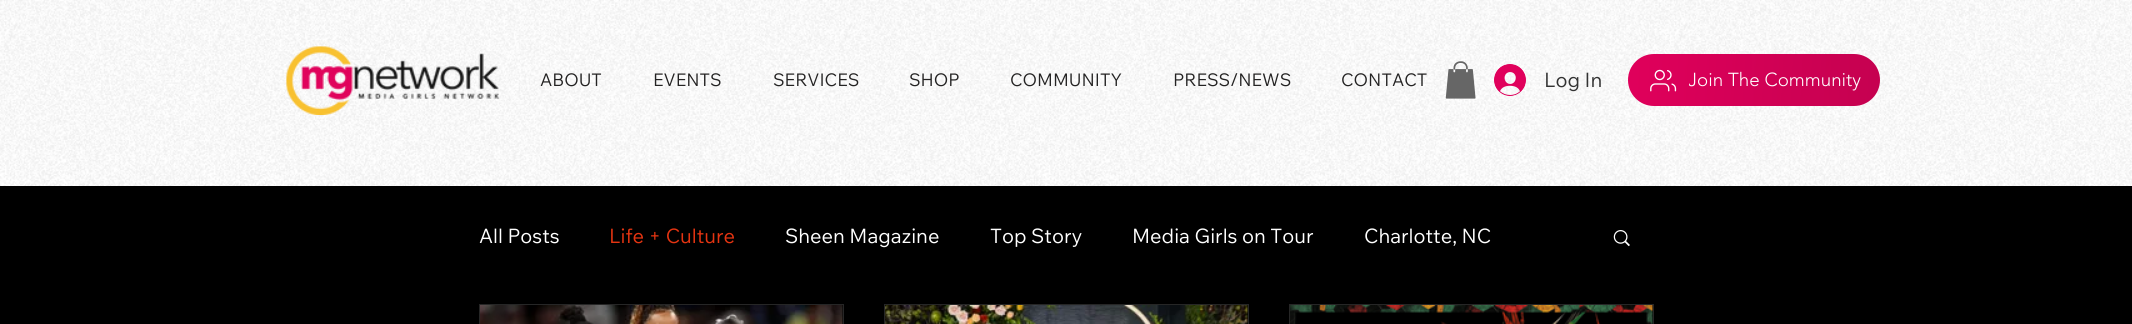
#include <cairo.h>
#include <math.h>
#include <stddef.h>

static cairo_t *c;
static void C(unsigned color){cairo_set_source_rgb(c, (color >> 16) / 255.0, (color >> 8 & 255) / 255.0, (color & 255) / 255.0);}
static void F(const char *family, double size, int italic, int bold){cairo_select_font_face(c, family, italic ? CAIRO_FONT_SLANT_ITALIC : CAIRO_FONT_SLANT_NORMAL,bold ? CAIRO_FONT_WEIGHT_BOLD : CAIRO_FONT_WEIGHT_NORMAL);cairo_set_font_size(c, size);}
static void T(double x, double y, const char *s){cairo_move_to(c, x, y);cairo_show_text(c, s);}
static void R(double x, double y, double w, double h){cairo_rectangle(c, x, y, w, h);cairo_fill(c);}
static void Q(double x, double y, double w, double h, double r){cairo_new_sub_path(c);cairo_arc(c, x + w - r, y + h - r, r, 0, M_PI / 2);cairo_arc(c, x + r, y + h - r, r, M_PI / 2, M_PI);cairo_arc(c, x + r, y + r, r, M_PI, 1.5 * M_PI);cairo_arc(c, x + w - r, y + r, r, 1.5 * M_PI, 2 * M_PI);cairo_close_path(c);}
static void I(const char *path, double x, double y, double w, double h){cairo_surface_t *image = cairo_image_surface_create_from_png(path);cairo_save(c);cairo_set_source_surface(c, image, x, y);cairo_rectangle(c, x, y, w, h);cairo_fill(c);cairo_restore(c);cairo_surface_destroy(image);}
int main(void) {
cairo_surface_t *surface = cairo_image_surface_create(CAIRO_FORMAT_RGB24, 2132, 324);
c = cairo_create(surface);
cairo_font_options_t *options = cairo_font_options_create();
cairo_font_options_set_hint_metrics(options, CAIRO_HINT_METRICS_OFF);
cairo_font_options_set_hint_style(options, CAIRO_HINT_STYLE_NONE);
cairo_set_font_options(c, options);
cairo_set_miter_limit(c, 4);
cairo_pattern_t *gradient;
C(0x000000);
cairo_paint(c);
C(0xffffff);
R(0,0,2132,186);
I("1.png",0,0,2132,186);
I("2.png",286,46,213,69);
F("Wix Madefor Text",17.5,0,0);
C(0x242323);
T(540,86,"ABOUT");
T(653,86,"EVENTS");
T(773,86,"SERVICES");
T(909,86,"SHOP");
T(1010,86,"COMMUNITY");
T(1173,86,"PRESS/NEWS");
T(1341,86,"CONTACT");
I("3.png",1445,61,31,38);
I("4.png",1494,64,32,32);
F("Wix Madefor Text",20,0,0);
C(0x333333);
T(1544,87,"Log In");
gradient = cairo_pattern_create_linear(1881,87,1626,73);
cairo_pattern_add_color_stop_rgba(gradient,0,0.773,0.004,0.314,1);
cairo_pattern_add_color_stop_rgba(gradient,1,0.878,0,0.357,1);
cairo_set_source(c,gradient);
cairo_pattern_destroy(gradient);
Q(1628,54,252,52,26);
cairo_fill(c);
I("5.png",1650,69,27,23);
cairo_save(c);
cairo_rectangle(c,1689,69,172,22);
cairo_clip(c);
F("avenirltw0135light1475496 Light",18.75,0,0);
C(0xffffff);
T(1688,86,"Join The Community");
cairo_restore(c);
C(0xffffff);
T(479,243,"All Posts");
C(0xe53411);
T(609,243,"Life + Culture");
C(0xffffff);
T(785,243,"Sheen Magazine");
T(990,243,"Top Story");
T(1132,243,"Media Girls on Tour");
T(1364,243,"Charlotte, NC");
I("6.png",1613,230,17,17);
cairo_rectangle(c,479.5,304.5,364,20);
C(0x262626);
cairo_set_line_width(c,1);
cairo_stroke(c);
I("7.png",480,305,363,19);
cairo_rectangle(c,884.5,304.5,364,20);
cairo_stroke(c);
I("8.png",885,305,363,19);
cairo_rectangle(c,1289.5,304.5,364,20);
cairo_stroke(c);
I("9.png",1290,305,363,19);
cairo_surface_write_to_png(surface, "o.png");
cairo_font_options_destroy(options);
cairo_destroy(c);
cairo_surface_destroy(surface);
return 0;
}
